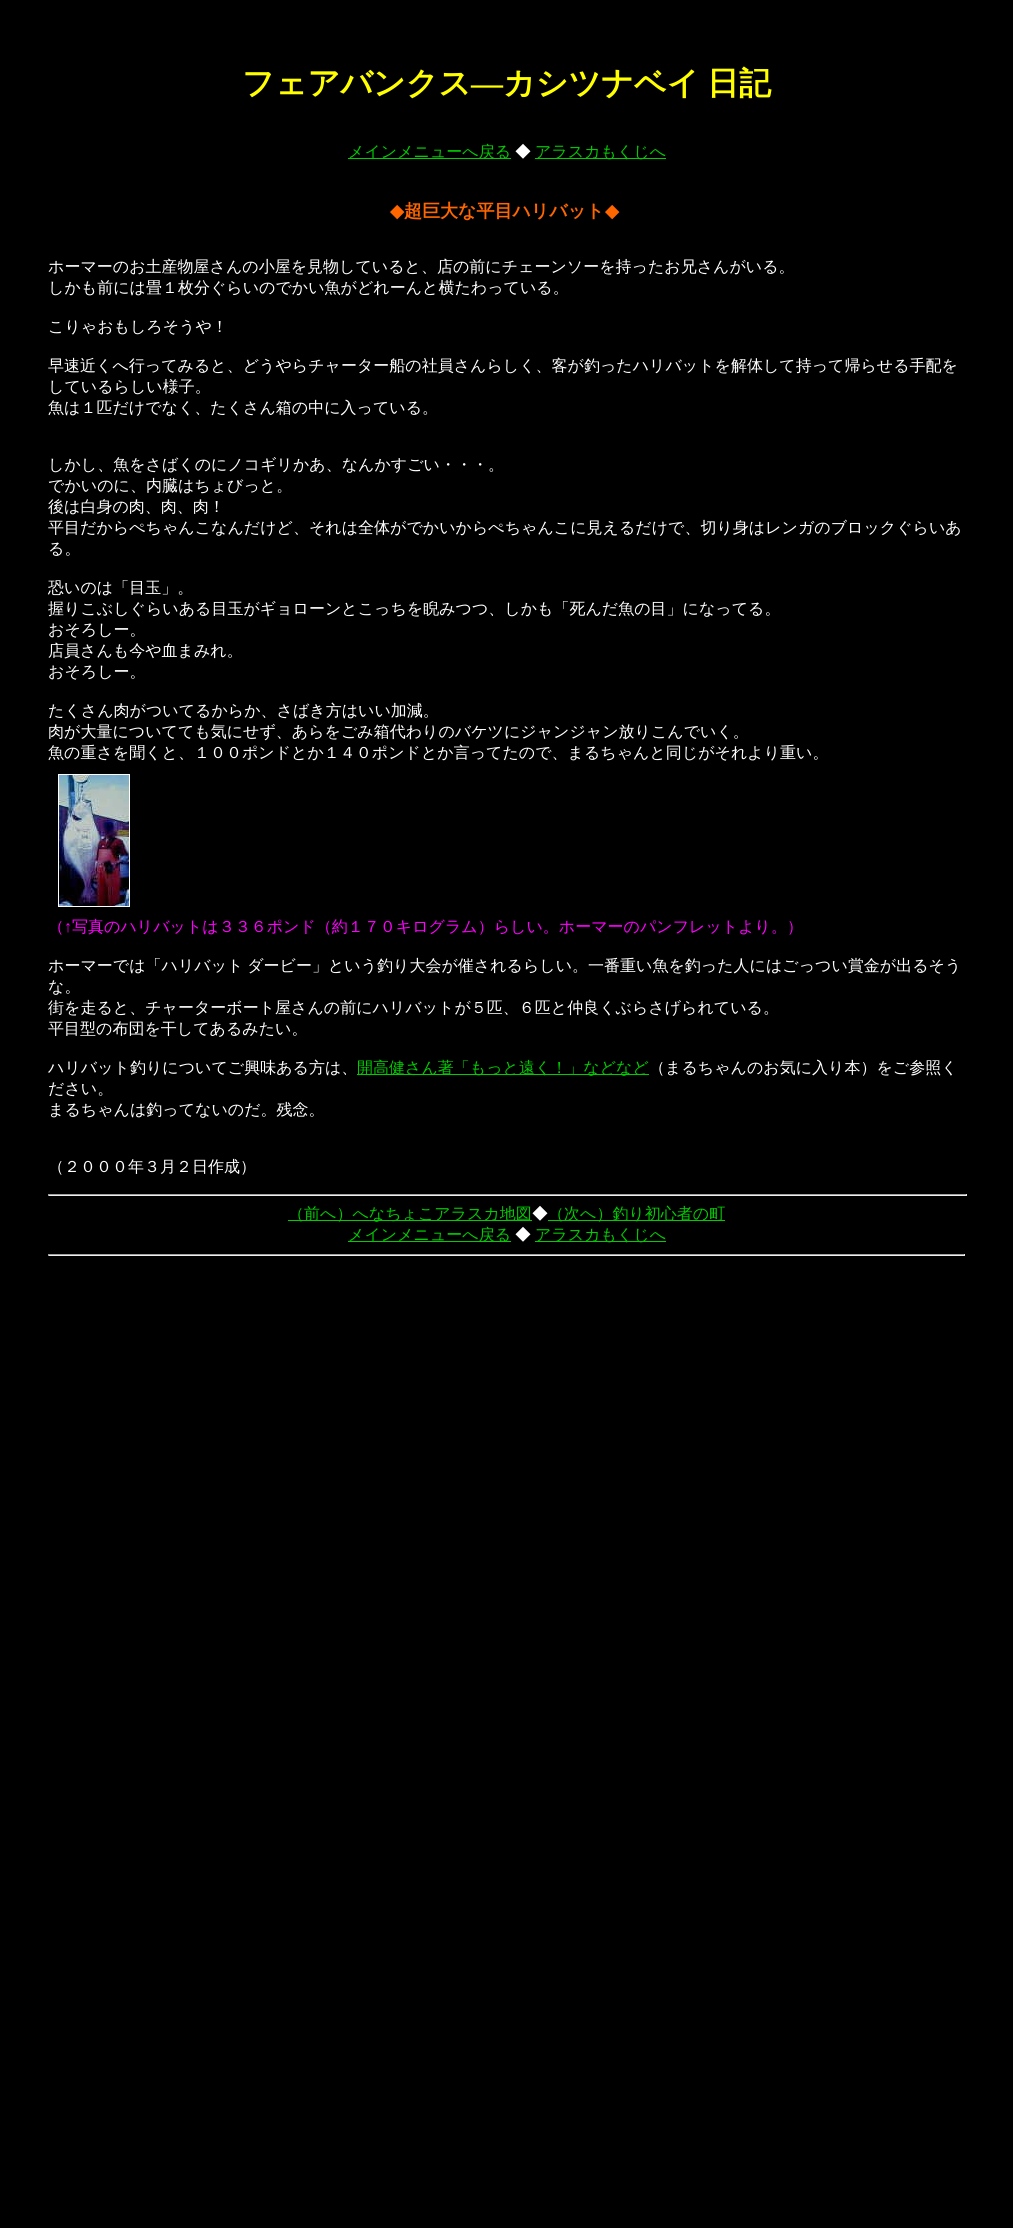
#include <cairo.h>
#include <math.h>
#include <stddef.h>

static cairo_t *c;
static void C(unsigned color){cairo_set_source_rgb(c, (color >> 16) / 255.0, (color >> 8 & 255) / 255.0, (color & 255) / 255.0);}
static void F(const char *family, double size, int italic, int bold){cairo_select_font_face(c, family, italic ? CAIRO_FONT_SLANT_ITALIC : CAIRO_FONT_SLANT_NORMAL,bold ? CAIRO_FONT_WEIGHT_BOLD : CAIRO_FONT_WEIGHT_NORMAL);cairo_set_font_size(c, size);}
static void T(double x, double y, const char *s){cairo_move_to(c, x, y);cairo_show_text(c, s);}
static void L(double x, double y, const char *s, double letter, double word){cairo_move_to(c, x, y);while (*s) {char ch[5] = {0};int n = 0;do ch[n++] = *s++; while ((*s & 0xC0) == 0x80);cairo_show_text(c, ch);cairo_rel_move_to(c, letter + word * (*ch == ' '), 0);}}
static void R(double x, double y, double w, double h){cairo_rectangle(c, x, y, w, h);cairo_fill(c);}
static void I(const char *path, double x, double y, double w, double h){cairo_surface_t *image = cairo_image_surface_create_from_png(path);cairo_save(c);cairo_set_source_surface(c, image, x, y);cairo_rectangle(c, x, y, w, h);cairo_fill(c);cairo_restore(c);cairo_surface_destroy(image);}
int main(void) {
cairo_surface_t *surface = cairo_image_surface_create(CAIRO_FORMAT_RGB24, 1013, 2228);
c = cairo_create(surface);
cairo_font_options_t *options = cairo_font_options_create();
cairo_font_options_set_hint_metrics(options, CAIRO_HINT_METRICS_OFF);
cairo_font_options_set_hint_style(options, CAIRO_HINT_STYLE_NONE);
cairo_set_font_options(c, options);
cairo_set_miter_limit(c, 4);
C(0x000000);
cairo_paint(c);
F("WenQuanYi Zen Hei",32,0,1);
C(0xffff00);
T(242,94,"フェアバンクス");
F("Liberation Serif",32,0,1);
T(471,94,"―");
F("WenQuanYi Zen Hei",32,0,1);
L(503,94,"カシツナベイ 日記",0,-2);
C(0x00cc00);
R(348,158,163,1);
F("WenQuanYi Zen Hei Medium",16,0,0);
T(348,157,"メインメニューへ戻る");
C(0xffffff);
T(515,157,"◆");
C(0x00cc00);
R(535,158,131,1);
T(535,157,"アラスカもくじへ");
F("DejaVu Sans",18,0,1);
C(0xff6600);
T(390,217,"◆");
F("WenQuanYi Zen Hei",18,0,1);
T(404,217,"超巨大な平目ハリバット");
F("DejaVu Sans",18,0,1);
T(605,217,"◆");
F("WenQuanYi Zen Hei Medium",16,0,0);
C(0xffffff);
T(48,272,"ホーマーのお土産物屋さんの小屋を見物していると、店の前にチェーンソーを持ったお兄さんがいる。");
T(48,293,"しかも前には畳１枚分ぐらいのでかい魚がどれーんと横たわっている。");
T(48,332,"こりゃおもしろそうや！");
T(48,371,"早速近くへ行ってみると、どうやらチャーター船の社員さんらしく、客が釣ったハリバットを解体して持って帰らせる手配を");
T(48,392,"しているらしい様子。");
T(48,413,"魚は１匹だけでなく、たくさん箱の中に入っている。");
T(48,470,"しかし、魚をさばくのにノコギリかあ、なんかすごい・・・。");
T(48,491,"でかいのに、内臓はちょびっと。");
T(48,512,"後は白身の肉、肉、肉！");
T(48,533,"平目だからぺちゃんこなんだけど、それは全体がでかいからぺちゃんこに見えるだけで、切り身はレンガのブロックぐらいあ");
T(48,554,"る。");
T(48,593,"恐いのは「目玉」。");
T(48,614,"握りこぶしぐらいある目玉がギョローンとこっちを睨みつつ、しかも「死んだ魚の目」になってる。");
T(48,635,"おそろしー。");
T(48,656,"店員さんも今や血まみれ。");
T(48,677,"おそろしー。");
T(48,716,"たくさん肉がついてるからか、さばき方はいい加減。");
T(48,737,"肉が大量についてても気にせず、あらをごみ箱代わりのバケツにジャンジャン放りこんでいく。");
T(48,758,"魚の重さを聞くと、１００ポンドとか１４０ポンドとか言ってたので、まるちゃんと同じがそれより重い。");
cairo_rectangle(c,58.5,774.5,71,132);
cairo_set_line_width(c,1);
cairo_stroke(c);
I("1.png",59,775,70,131);
C(0xff00ff);
T(48,932,"（");
F("Liberation Serif",16,0,0);
T(64,932,"↑");
F("WenQuanYi Zen Hei Medium",16,0,0);
T(72,932,"写真のハリバットは３３６ポンド（約１７０キログラム）らしい。ホーマーのパンフレットより。）");
C(0xffffff);
L(48,971,"ホーマーでは「ハリバット ダービー」という釣り大会が催されるらしい。一番重い魚を釣った人にはごっつい賞金が出るそう",0,-1);
T(48,992,"な。");
T(48,1013,"街を走ると、チャーターボート屋さんの前にハリバットが５匹、６匹と仲良くぶらさげられている。");
T(48,1034,"平目型の布団を干してあるみたい。");
T(48,1073,"ハリバット釣りについてご興味ある方は、");
C(0x00cc00);
R(357,1074,292,1);
T(357,1073,"開高健さん著「もっと遠く！」などなど");
C(0xffffff);
T(649,1073,"（まるちゃんのお気に入り本）をご参照く");
T(48,1094,"ださい。");
T(48,1115,"まるちゃんは釣ってないのだ。残念。");
T(48,1172,"（２０００年３月２日作成）");
C(0x9f9f9f);
R(48,1194,919,1);
C(0xeeeeee);
R(966,1194,1,2);
R(48,1195,919,1);
C(0x9f9f9f);
R(48,1194,1,2);
C(0x00cc00);
R(288,1220,244,1);
T(288,1219,"（前へ）へなちょこアラスカ地図");
C(0xffffff);
T(532,1219,"◆");
C(0x00cc00);
R(548,1220,177,1);
T(548,1219,"（次へ）釣り初心者の町");
R(348,1241,163,1);
T(348,1240,"メインメニューへ戻る");
C(0xffffff);
T(515,1240,"◆");
C(0x00cc00);
R(535,1241,131,1);
T(535,1240,"アラスカもくじへ");
C(0x9f9f9f);
R(48,1254,917,1);
C(0xeeeeee);
R(964,1254,1,2);
R(48,1255,917,1);
C(0x9f9f9f);
R(48,1254,1,2);
cairo_surface_write_to_png(surface, "o.png");
cairo_font_options_destroy(options);
cairo_destroy(c);
cairo_surface_destroy(surface);
return 0;
}
